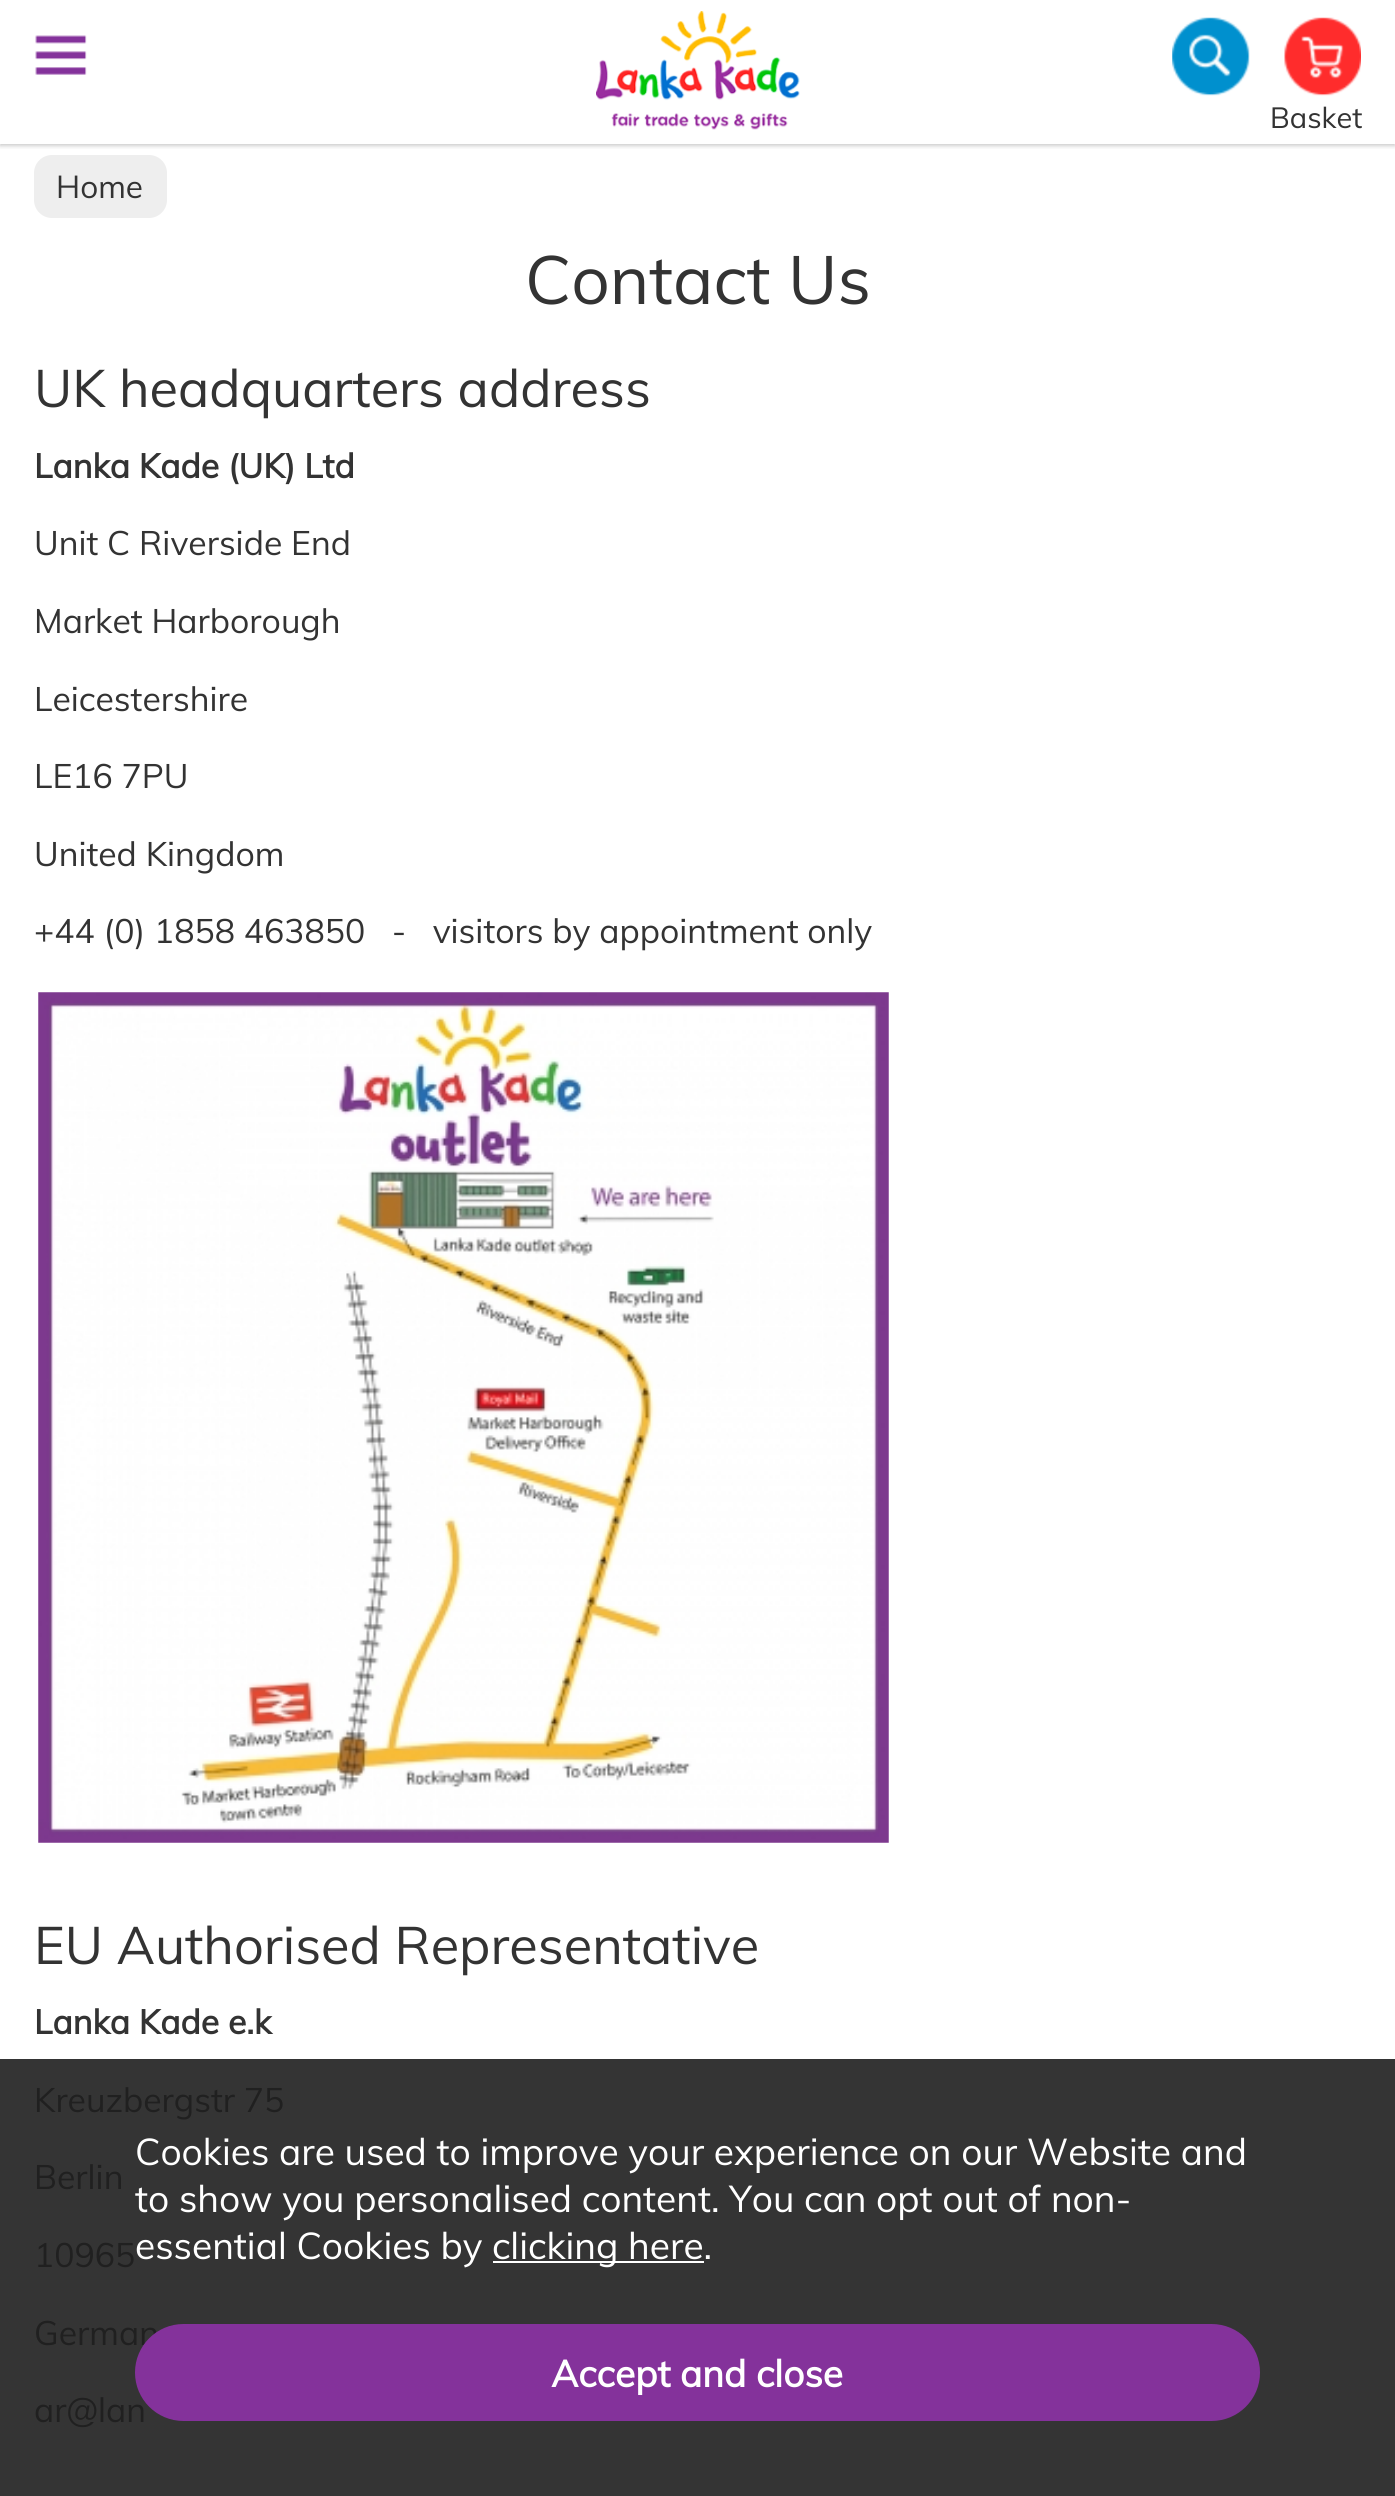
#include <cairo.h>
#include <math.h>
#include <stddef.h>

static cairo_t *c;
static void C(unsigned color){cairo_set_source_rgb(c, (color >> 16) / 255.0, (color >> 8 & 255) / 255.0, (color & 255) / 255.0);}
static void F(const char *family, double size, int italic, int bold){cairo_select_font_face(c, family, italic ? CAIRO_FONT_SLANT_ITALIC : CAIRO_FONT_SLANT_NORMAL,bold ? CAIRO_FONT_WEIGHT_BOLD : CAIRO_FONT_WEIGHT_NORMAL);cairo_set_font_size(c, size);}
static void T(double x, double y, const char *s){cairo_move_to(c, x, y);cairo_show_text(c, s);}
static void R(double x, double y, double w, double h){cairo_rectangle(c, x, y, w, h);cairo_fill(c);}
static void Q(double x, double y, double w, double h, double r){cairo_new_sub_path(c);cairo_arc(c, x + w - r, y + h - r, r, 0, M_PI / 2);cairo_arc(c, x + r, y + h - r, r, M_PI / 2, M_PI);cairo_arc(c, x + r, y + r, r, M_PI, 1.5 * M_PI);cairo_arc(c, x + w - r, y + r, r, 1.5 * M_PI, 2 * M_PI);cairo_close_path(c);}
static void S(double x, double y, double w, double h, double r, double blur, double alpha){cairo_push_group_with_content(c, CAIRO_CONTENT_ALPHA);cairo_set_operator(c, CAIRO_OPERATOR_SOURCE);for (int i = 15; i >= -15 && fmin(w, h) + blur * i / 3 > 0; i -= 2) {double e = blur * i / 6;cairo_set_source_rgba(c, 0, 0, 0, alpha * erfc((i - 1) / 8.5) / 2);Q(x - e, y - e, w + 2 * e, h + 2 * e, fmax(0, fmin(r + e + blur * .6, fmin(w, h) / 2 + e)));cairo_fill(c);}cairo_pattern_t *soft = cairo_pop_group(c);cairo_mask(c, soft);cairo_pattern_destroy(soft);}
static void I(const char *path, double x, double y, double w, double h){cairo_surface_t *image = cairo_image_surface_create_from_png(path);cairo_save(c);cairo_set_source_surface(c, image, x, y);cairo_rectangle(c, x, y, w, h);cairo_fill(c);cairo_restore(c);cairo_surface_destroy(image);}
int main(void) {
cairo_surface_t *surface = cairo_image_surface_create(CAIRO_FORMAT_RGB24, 1395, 2496);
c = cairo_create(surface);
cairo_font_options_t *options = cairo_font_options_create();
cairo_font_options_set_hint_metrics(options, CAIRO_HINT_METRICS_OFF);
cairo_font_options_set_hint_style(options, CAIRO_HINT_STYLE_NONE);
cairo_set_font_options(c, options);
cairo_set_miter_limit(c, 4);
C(0xffffff);
cairo_paint(c);
C(0x343434);
R(0,2059,1395,437);
cairo_save(c);
cairo_rectangle(c,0,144,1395,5);
cairo_clip(c);
C(0x000000);
S(0,2,1395,144,0,2,.2);
cairo_restore(c);
I("1.png",35,35,52,40);
I("2.png",596,11,204,119);
I("3.png",1172,17,78,79);
I("4.png",1284,17,77,79);
F("Muli",29,0,0);
C(0x333333);
T(1270,128,"Basket");
C(0xeeeeee);
Q(34,155,133,63,18);
cairo_fill(c);
F("Muli",31.5,0,0);
C(0x333333);
T(56,198,"Home");
F("Muli",67.5,0,0);
T(525,304,"Contact Us");
F("Muli",52.25,0,0);
T(34,407,"UK headquarters address");
F("Muli",33.75,0,1);
T(34,478,"Lanka Kade (UK) Ltd");
F("Muli",33.75,0,0);
T(34,555,"Unit C Riverside End");
T(34,633,"Market Harborough");
T(34,711,"Leicestershire");
T(34,788,"LE16 7PU");
T(34,866,"United Kingdom");
T(34,943,"+44 (0) 1858 463850   -   visitors by appointment only");
I("5.png",38,992,851,851);
F("Muli",52.25,0,0);
T(34,1964,"EU Authorised Representative");
F("Muli",33.75,0,1);
T(34,2034,"Lanka Kade e.k");
F("Muli",33.75,0,0);
C(0x202020);
T(34,2112,"Kreuzbergstr 75");
T(34,2189,"Berlin");
T(34,2267,"10965");
T(34,2345,"German");
T(34,2422,"ar@lan");
F("Muli",37.1,0,0);
C(0xffffff);
T(135,2165,"Cookies are used to improve your experience on our Website and");
T(135,2212,"to show you personalised content. You can opt out of non-");
T(135,2259,"essential Cookies by");
R(493,2261,211,2);
T(492,2259,"clicking here.");
C(0x84329b);
Q(136,2325,1123,95,47.5);
cairo_fill_preserve(c);
cairo_stroke(c);
F("Muli",37.1,0,1);
C(0xffffff);
T(551,2387,"Accept and close");
cairo_surface_write_to_png(surface, "o.png");
cairo_font_options_destroy(options);
cairo_destroy(c);
cairo_surface_destroy(surface);
return 0;
}
